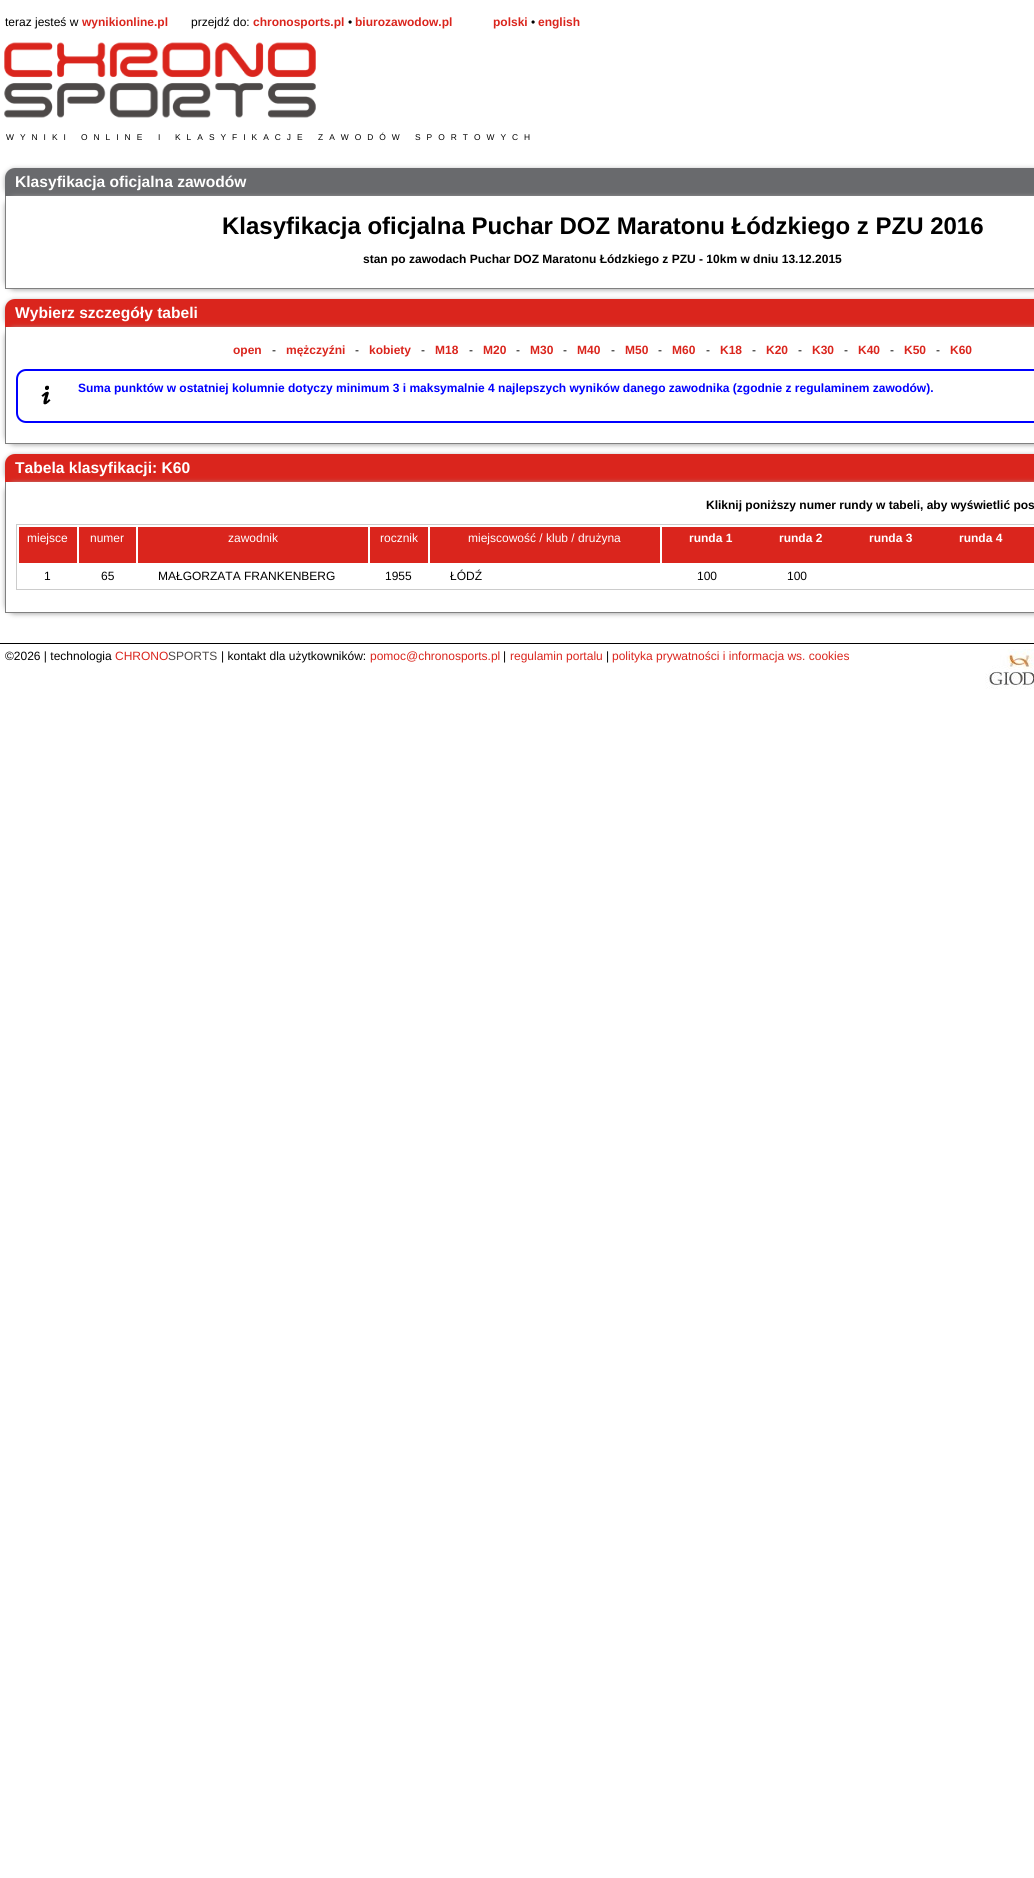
#include <cairo.h>
#include <math.h>
#include <stddef.h>

static cairo_t *c;
static void C(unsigned color){cairo_set_source_rgb(c, (color >> 16) / 255.0, (color >> 8 & 255) / 255.0, (color & 255) / 255.0);}
static void F(const char *family, double size, int italic, int bold){cairo_select_font_face(c, family, italic ? CAIRO_FONT_SLANT_ITALIC : CAIRO_FONT_SLANT_NORMAL,bold ? CAIRO_FONT_WEIGHT_BOLD : CAIRO_FONT_WEIGHT_NORMAL);cairo_set_font_size(c, size);}
static void T(double x, double y, const char *s){cairo_move_to(c, x, y);cairo_show_text(c, s);}
static void L(double x, double y, const char *s, double letter, double word){cairo_move_to(c, x, y);while (*s) {char ch[5] = {0};int n = 0;do ch[n++] = *s++; while ((*s & 0xC0) == 0x80);cairo_show_text(c, ch);cairo_rel_move_to(c, letter + word * (*ch == ' '), 0);}}
static void R(double x, double y, double w, double h){cairo_rectangle(c, x, y, w, h);cairo_fill(c);}
static void Q(double x, double y, double w, double h, double r){cairo_new_sub_path(c);cairo_arc(c, x + w - r, y + h - r, r, 0, M_PI / 2);cairo_arc(c, x + r, y + h - r, r, M_PI / 2, M_PI);cairo_arc(c, x + r, y + r, r, M_PI, 1.5 * M_PI);cairo_arc(c, x + w - r, y + r, r, 1.5 * M_PI, 2 * M_PI);cairo_close_path(c);}
static void S(double x, double y, double w, double h, double r, double blur, double alpha){cairo_push_group_with_content(c, CAIRO_CONTENT_ALPHA);cairo_set_operator(c, CAIRO_OPERATOR_SOURCE);for (int i = 15; i >= -15 && fmin(w, h) + blur * i / 3 > 0; i -= 2) {double e = blur * i / 6;cairo_set_source_rgba(c, 0, 0, 0, alpha * erfc((i - 1) / 8.5) / 2);Q(x - e, y - e, w + 2 * e, h + 2 * e, fmax(0, fmin(r + e + blur * .6, fmin(w, h) / 2 + e)));cairo_fill(c);}cairo_pattern_t *soft = cairo_pop_group(c);cairo_mask(c, soft);cairo_pattern_destroy(soft);}
static void I(const char *path, double x, double y, double w, double h){cairo_surface_t *image = cairo_image_surface_create_from_png(path);cairo_save(c);cairo_set_source_surface(c, image, x, y);cairo_rectangle(c, x, y, w, h);cairo_fill(c);cairo_restore(c);cairo_surface_destroy(image);}
int main(void) {
cairo_surface_t *surface = cairo_image_surface_create(CAIRO_FORMAT_RGB24, 1034, 1878);
c = cairo_create(surface);
cairo_font_options_t *options = cairo_font_options_create();
cairo_font_options_set_hint_metrics(options, CAIRO_HINT_METRICS_OFF);
cairo_font_options_set_hint_style(options, CAIRO_HINT_STYLE_NONE);
cairo_set_font_options(c, options);
cairo_set_miter_limit(c, 4);
C(0xffffff);
cairo_paint(c);
F("Liberation Sans",12,0,0);
C(0x000000);
T(5,26,"teraz jesteś w");
F("Liberation Sans",12,0,1);
C(0xda251d);
T(82,26,"wynikionline.pl");
F("Liberation Sans",12,0,0);
C(0x000000);
T(191,26,"przejdź do:");
F("Liberation Sans",12,0,1);
C(0xda251d);
T(253,26,"chronosports.pl");
F("Liberation Sans",12,0,0);
C(0x000000);
T(348,26,"•");
F("Liberation Sans",12,0,1);
C(0xda251d);
T(355,26,"biurozawodow.pl");
T(493,26,"polski");
F("Liberation Sans",12,0,0);
C(0x000000);
T(531,26,"•");
F("Liberation Sans",12,0,1);
C(0xda251d);
T(538,26,"english");
I("1.png",4,42,312,76);
F("Liberation Sans",8.4,0,0);
C(0x000000);
L(6,140,"WYNIKI",6,0);
L(81,140,"ONLINE",6,0);
L(158,140,"I",6,0);
L(175,140,"KLASYFIKACJE",6,0);
L(318,140,"ZAWODÓW",6,0);
L(415,140,"SPORTOWYCH",6,0);
C(0xaaaaaa);
S(5,169,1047,28,10,2.5,1);
C(0x696a6d);
cairo_new_path(c);
cairo_move_to(c,15,168);
cairo_line_to(c,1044,168);
cairo_line_to(c,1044,196);
cairo_line_to(c,5,196);
cairo_line_to(c,5,178);
cairo_curve_to(c,5,172.5,9.5,168,15,168);
cairo_close_path(c);
cairo_fill(c);
C(0xaaaaaa);
S(5,197,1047,93,10,2.5,1);
F("Liberation Sans",15.6,0,1);
C(0xffffff);
T(15,187,"Klasyfikacja oficjalna zawodów");
R(6,196,1028,92);
C(0x808080);
cairo_set_fill_rule(c,CAIRO_FILL_RULE_EVEN_ODD);
cairo_new_path(c);
cairo_move_to(c,5,196);
cairo_line_to(c,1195,196);
cairo_line_to(c,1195,279);
cairo_curve_to(c,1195,285,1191,289,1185,289);
cairo_line_to(c,5,289);
cairo_close_path(c);
cairo_move_to(c,6,196);
cairo_line_to(c,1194,196);
cairo_line_to(c,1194,279);
cairo_curve_to(c,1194,284,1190,288,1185,288);
cairo_line_to(c,6,288);
cairo_close_path(c);
cairo_fill(c);
F("Liberation Sans",24,0,1);
C(0x000000);
T(222,234,"Klasyfikacja oficjalna Puchar DOZ Maratonu Łódzkiego z PZU 2016");
F("Liberation Sans",12,0,1);
T(363,263,"stan po zawodach Puchar DOZ Maratonu Łódzkiego z PZU - 10km w dniu 13.12.2015");
C(0xaaaaaa);
S(5,300,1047,28,10,2.5,1);
C(0xda251d);
cairo_new_path(c);
cairo_move_to(c,15,299);
cairo_line_to(c,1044,299);
cairo_line_to(c,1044,327);
cairo_line_to(c,5,327);
cairo_line_to(c,5,309);
cairo_curve_to(c,5,303.5,9.5,299,15,299);
cairo_close_path(c);
cairo_fill(c);
C(0xaaaaaa);
S(5,328,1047,117,10,2.5,1);
F("Liberation Sans",15.6,0,1);
C(0xffffff);
T(15,318,"Wybierz szczegóły tabeli");
R(6,327,1028,116);
C(0x808080);
cairo_new_path(c);
cairo_move_to(c,5,327);
cairo_line_to(c,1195,327);
cairo_line_to(c,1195,434);
cairo_curve_to(c,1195,440,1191,444,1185,444);
cairo_line_to(c,5,444);
cairo_close_path(c);
cairo_move_to(c,6,327);
cairo_line_to(c,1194,327);
cairo_line_to(c,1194,434);
cairo_curve_to(c,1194,439,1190,443,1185,443);
cairo_line_to(c,6,443);
cairo_close_path(c);
cairo_fill(c);
F("Liberation Sans",12,0,1);
C(0xda251d);
T(233,354,"open");
F("Liberation Sans",12,0,0);
C(0x000000);
T(272,354,"-");
F("Liberation Sans",12,0,1);
C(0xda251d);
T(286,354,"mężczyźni");
F("Liberation Sans",12,0,0);
C(0x000000);
T(355,354,"-");
F("Liberation Sans",12,0,1);
C(0xda251d);
T(369,354,"kobiety");
F("Liberation Sans",12,0,0);
C(0x000000);
T(421,354,"-");
F("Liberation Sans",12,0,1);
C(0xda251d);
T(435,354,"M18");
F("Liberation Sans",12,0,0);
C(0x000000);
T(469,354,"-");
F("Liberation Sans",12,0,1);
C(0xda251d);
T(483,354,"M20");
F("Liberation Sans",12,0,0);
C(0x000000);
T(516,354,"-");
F("Liberation Sans",12,0,1);
C(0xda251d);
T(530,354,"M30");
F("Liberation Sans",12,0,0);
C(0x000000);
T(563,354,"-");
F("Liberation Sans",12,0,1);
C(0xda251d);
T(577,354,"M40");
F("Liberation Sans",12,0,0);
C(0x000000);
T(611,354,"-");
F("Liberation Sans",12,0,1);
C(0xda251d);
T(625,354,"M50");
F("Liberation Sans",12,0,0);
C(0x000000);
T(658,354,"-");
F("Liberation Sans",12,0,1);
C(0xda251d);
T(672,354,"M60");
F("Liberation Sans",12,0,0);
C(0x000000);
T(706,354,"-");
F("Liberation Sans",12,0,1);
C(0xda251d);
T(720,354,"K18");
F("Liberation Sans",12,0,0);
C(0x000000);
T(752,354,"-");
F("Liberation Sans",12,0,1);
C(0xda251d);
T(766,354,"K20");
F("Liberation Sans",12,0,0);
C(0x000000);
T(798,354,"-");
F("Liberation Sans",12,0,1);
C(0xda251d);
T(812,354,"K30");
F("Liberation Sans",12,0,0);
C(0x000000);
T(844,354,"-");
F("Liberation Sans",12,0,1);
C(0xda251d);
T(858,354,"K40");
F("Liberation Sans",12,0,0);
C(0x000000);
T(890,354,"-");
F("Liberation Sans",12,0,1);
C(0xda251d);
T(904,354,"K50");
F("Liberation Sans",12,0,0);
C(0x000000);
T(936,354,"-");
F("Liberation Sans",12,0,1);
C(0xda251d);
T(950,354,"K60");
I("2.png",41,385,10,20);
Q(17,370,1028,52,9);
C(0x0000ff);
cairo_stroke(c);
T(78,392,"Suma punktów w ostatniej kolumnie dotyczy minimum 3 i maksymalnie 4 najlepszych wyników danego zawodnika (zgodnie z regulaminem zawodów).");
C(0xaaaaaa);
S(5,455,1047,28,10,2.5,1);
C(0xda251d);
cairo_new_path(c);
cairo_move_to(c,15,454);
cairo_line_to(c,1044,454);
cairo_line_to(c,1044,482);
cairo_line_to(c,5,482);
cairo_line_to(c,5,464);
cairo_curve_to(c,5,458.5,9.5,454,15,454);
cairo_close_path(c);
cairo_fill(c);
C(0xaaaaaa);
S(5,483,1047,131,10,2.5,1);
F("Liberation Sans",15.6,0,1);
C(0xffffff);
T(15,473,"Tabela klasyfikacji: K60");
R(6,482,1028,130);
C(0x808080);
cairo_new_path(c);
cairo_move_to(c,5,482);
cairo_line_to(c,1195,482);
cairo_line_to(c,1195,603);
cairo_curve_to(c,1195,609,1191,613,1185,613);
cairo_line_to(c,5,613);
cairo_close_path(c);
cairo_move_to(c,6,482);
cairo_line_to(c,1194,482);
cairo_line_to(c,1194,603);
cairo_curve_to(c,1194,608,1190,612,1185,612);
cairo_line_to(c,6,612);
cairo_close_path(c);
cairo_fill(c);
F("Liberation Sans",12,0,1);
C(0x000000);
T(706,509,"Kliknij poniższy numer rundy w tabeli, aby wyświetlić pos");
cairo_rectangle(c,16.5,524.5,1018,65);
C(0xcccccc);
cairo_set_line_width(c,1);
cairo_stroke(c);
C(0xda251d);
R(19,527,58,36);
F("Liberation Sans",12,0,0);
C(0xffffff);
T(27,542,"miejsce");
C(0xda251d);
R(79,527,57,36);
C(0xffffff);
T(90,542,"numer");
C(0xda251d);
R(138,527,230,36);
C(0xffffff);
T(228,542,"zawodnik");
C(0xda251d);
R(370,527,58,36);
C(0xffffff);
T(380,542,"rocznik");
C(0xda251d);
R(430,527,230,36);
C(0xffffff);
T(468,542,"miejscowość / klub / drużyna");
C(0xda251d);
R(662,527,372,36);
F("Liberation Sans",12,0,1);
C(0xffffff);
T(689,542,"runda 1");
T(779,542,"runda 2");
T(869,542,"runda 3");
T(959,542,"runda 4");
F("Liberation Sans",12,0,0);
C(0x000000);
T(44,580,"1");
T(101,580,"65");
T(158,580,"MAŁGORZATA FRANKENBERG");
T(385,580,"1955");
T(450,580,"ŁÓDŹ");
T(697,580,"100");
T(787,580,"100");
R(0,643,1034,1);
T(5,660,"©2026 | technologia");
C(0xda251d);
T(115,660,"CHRONO");
C(0x4d4948);
T(168,660,"SPORTS");
C(0x000000);
T(221,660,"| kontakt dla użytkowników:");
C(0xda251d);
T(370,660,"pomoc@chronosports.pl");
C(0x000000);
T(503,660,"|");
C(0xda251d);
T(510,660,"regulamin portalu");
C(0x000000);
T(606,660,"|");
C(0xda251d);
T(612,660,"polityka prywatności i informacja ws. cookies");
I("3.png",985,649,49,40);
cairo_surface_write_to_png(surface, "o.png");
cairo_font_options_destroy(options);
cairo_destroy(c);
cairo_surface_destroy(surface);
return 0;
}
